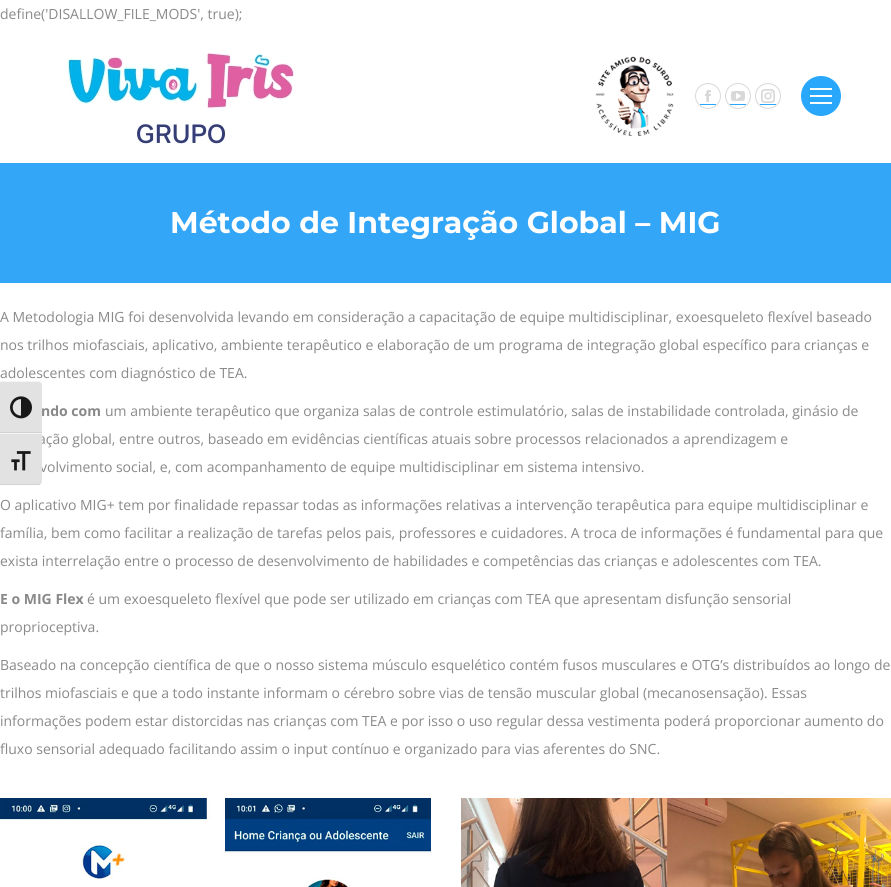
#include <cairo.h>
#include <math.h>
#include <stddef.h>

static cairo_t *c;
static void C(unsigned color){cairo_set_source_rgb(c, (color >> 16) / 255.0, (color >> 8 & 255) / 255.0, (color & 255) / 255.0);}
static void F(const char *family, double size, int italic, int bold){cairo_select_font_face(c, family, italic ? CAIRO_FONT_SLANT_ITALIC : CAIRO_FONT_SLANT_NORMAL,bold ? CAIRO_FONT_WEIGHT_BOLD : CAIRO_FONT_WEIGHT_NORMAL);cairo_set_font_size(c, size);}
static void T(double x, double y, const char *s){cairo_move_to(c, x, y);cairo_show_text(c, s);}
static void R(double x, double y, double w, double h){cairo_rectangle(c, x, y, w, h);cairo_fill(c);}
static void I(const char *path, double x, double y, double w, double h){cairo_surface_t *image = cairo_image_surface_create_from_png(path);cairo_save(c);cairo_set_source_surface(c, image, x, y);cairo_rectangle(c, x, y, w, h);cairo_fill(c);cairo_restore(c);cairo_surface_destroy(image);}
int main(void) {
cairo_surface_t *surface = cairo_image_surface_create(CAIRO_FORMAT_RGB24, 891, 887);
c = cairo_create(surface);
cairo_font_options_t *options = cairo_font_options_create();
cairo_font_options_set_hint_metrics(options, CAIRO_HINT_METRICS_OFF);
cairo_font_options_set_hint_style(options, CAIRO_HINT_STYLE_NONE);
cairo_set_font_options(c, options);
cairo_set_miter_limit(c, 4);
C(0xffffff);
cairo_paint(c);
F("Open Sans",14,0,0);
C(0x898989);
T(0,19,"define('DISALLOW_FILE_MODS', true);");
I("1.png",67,52,229,94);
I("2.png",595,56,79,80);
cairo_arc(c,708,96,12.5,0,2 * M_PI);
C(0xd8d8d8);
cairo_set_line_width(c,1);
cairo_stroke(c);
I("3.png",705,90,6,12);
C(0x28a7fb);
R(700,104,16,1);
cairo_arc(c,738,96,12.5,0,2 * M_PI);
C(0xd8d8d8);
cairo_stroke(c);
I("4.png",731,91,14,10);
C(0x28a7fb);
R(730,104,16,1);
cairo_arc(c,768,96,12.5,0,2 * M_PI);
C(0xd8d8d8);
cairo_stroke(c);
I("5.png",761,89,14,14);
C(0x28a7fb);
R(760,104,16,1);
cairo_arc(c,821,96,20,0,2 * M_PI);
cairo_fill(c);
C(0xffffff);
R(810,88,22,2);
R(810,95,22,2);
R(810,102,22,2);
C(0x34a6f7);
R(0,163,891,120);
F("Montserrat",30,0,1);
C(0xffffff);
T(170,233,"Método de Integração Global – MIG");
F("Open Sans",14,0,0);
C(0x898989);
T(0,322,"A Metodologia MIG foi desenvolvida levando em consideração a capacitação de equipe multidisciplinar, exoesqueleto flexível baseado");
T(0,350,"nos trilhos miofasciais, aplicativo, ambiente terapêutico e elaboração de um programa de integração global específico para crianças e");
T(0,378,"adolescentes com diagnóstico de TEA.");
F("Open Sans",14,0,1);
T(41,416,"ndo com");
F("Open Sans",14,0,0);
T(105,416,"um ambiente terapêutico que organiza salas de controle estimulatório, salas de instabilidade controlada, ginásio de");
T(38,444,"ação global, entre outros, baseado em evidências científicas atuais sobre processos relacionados a aprendizagem e");
T(40,472,"volvimento social, e, com acompanhamento de equipe multidisciplinar em sistema intensivo.");
T(0,510,"O aplicativo MIG+ tem por finalidade repassar todas as informações relativas a intervenção terapêutica para equipe multidisciplinar e");
T(0,538,"família, bem como facilitar a realização de tarefas pelos pais, professores e cuidadores. A troca de informações é fundamental para que");
T(0,566,"exista interrelação entre o processo de desenvolvimento de habilidades e competências das crianças e adolescentes com TEA.");
F("Open Sans",14,0,1);
T(0,604,"E o MIG Flex");
F("Open Sans",14,0,0);
T(87,604,"é um exoesqueleto flexível que pode ser utilizado em crianças com TEA que apresentam disfunção sensorial");
T(0,632,"proprioceptiva.");
T(0,670,"Baseado na concepção científica de que o nosso sistema músculo esquelético contém fusos musculares e OTG’s distribuídos ao longo de");
T(0,698,"trilhos miofasciais e que a todo instante informam o cérebro sobre vias de tensão muscular global (mecanosensação). Essas");
T(0,726,"informações podem estar distorcidas nas crianças com TEA e por isso o uso regular dessa vestimenta poderá proporcionar aumento do");
T(0,754,"fluxo sensorial adequado facilitando assim o input contínuo e organizado para vias aferentes do SNC.");
I("6.png",0,798,431,89);
I("7.png",461,798,430,89);
C(0xe2e2e2);
cairo_new_path(c);
cairo_move_to(c,0,381);
cairo_line_to(c,38,381);
cairo_curve_to(c,40,381,42,383,42,385);
cairo_line_to(c,42,433);
cairo_line_to(c,0,433);
cairo_close_path(c);
cairo_fill(c);
C(0xf5f5f5);
cairo_new_path(c);
cairo_move_to(c,0,381);
cairo_line_to(c,0,382);
cairo_line_to(c,38,382);
cairo_curve_to(c,40,382,42,383,42,385);
cairo_curve_to(c,42,383,40,381,38,381);
cairo_close_path(c);
cairo_fill(c);
C(0xd2d2d2);
R(0,432,42,1);
I("8.png",10,396,22,23);
C(0xe2e2e2);
cairo_new_path(c);
cairo_move_to(c,0,433);
cairo_line_to(c,42,433);
cairo_line_to(c,42,481);
cairo_curve_to(c,42,483,40,485,38,485);
cairo_line_to(c,0,485);
cairo_close_path(c);
cairo_fill(c);
C(0xf5f5f5);
R(0,433,42,1);
C(0xd2d2d2);
cairo_new_path(c);
cairo_move_to(c,0,484);
cairo_line_to(c,0,485);
cairo_line_to(c,38,485);
cairo_curve_to(c,40,485,42,483,42,481);
cairo_curve_to(c,42,483,40,484,38,484);
cairo_close_path(c);
cairo_fill(c);
I("9.png",11,451,20,20);
cairo_surface_write_to_png(surface, "o.png");
cairo_font_options_destroy(options);
cairo_destroy(c);
cairo_surface_destroy(surface);
return 0;
}
